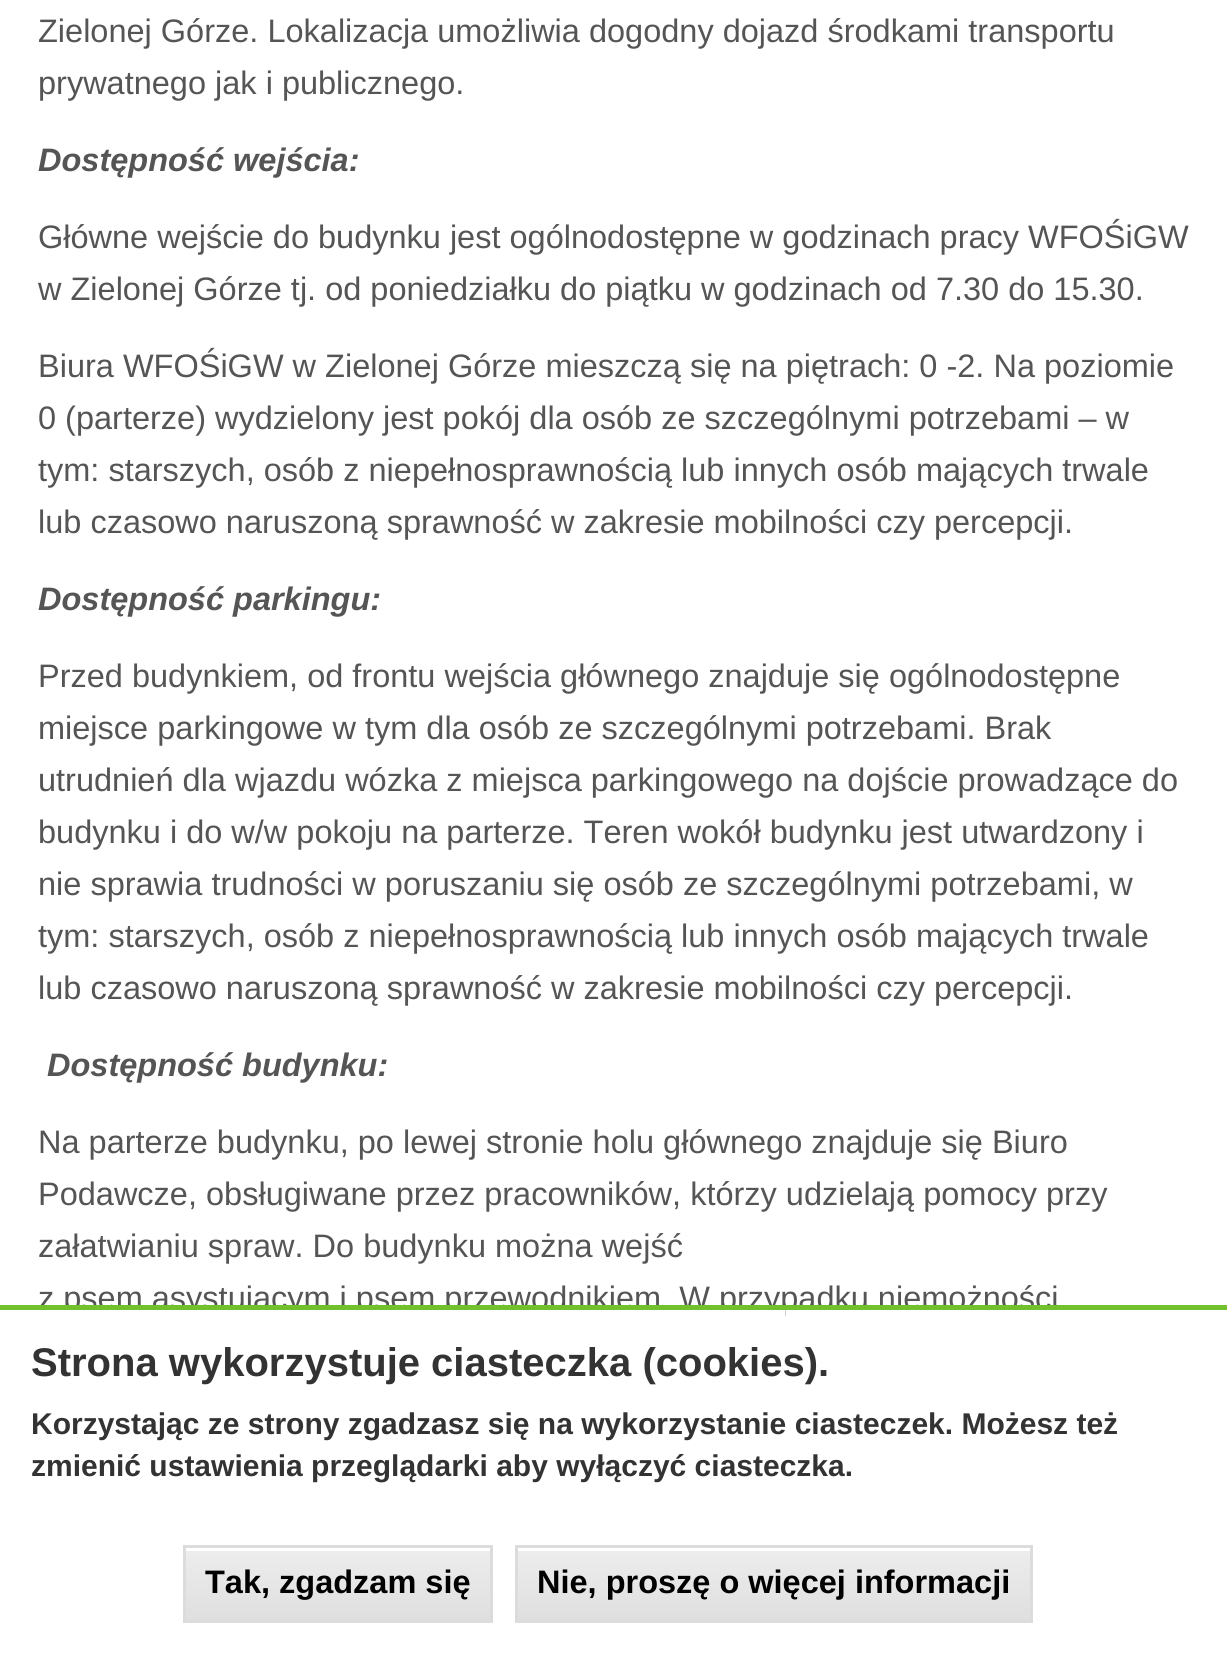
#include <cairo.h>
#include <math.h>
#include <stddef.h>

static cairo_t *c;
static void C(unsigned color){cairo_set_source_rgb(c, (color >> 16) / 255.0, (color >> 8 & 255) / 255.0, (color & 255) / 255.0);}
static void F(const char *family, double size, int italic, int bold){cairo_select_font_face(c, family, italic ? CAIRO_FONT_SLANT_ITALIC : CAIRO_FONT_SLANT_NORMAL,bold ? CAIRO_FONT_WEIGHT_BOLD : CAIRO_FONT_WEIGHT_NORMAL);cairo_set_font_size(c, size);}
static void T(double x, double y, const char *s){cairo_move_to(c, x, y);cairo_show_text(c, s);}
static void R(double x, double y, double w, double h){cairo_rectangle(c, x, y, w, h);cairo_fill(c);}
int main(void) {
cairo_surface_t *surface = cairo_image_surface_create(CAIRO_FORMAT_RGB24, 1227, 1666);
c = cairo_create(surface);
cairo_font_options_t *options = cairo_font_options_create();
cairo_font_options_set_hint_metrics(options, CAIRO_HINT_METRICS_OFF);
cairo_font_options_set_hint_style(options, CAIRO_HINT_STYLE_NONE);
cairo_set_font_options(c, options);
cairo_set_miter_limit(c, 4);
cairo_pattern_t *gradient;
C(0xffffff);
cairo_paint(c);
F("Liberation Sans",32.5,0,0);
C(0x555555);
T(38,42,"Zielonej Górze. Lokalizacja umożliwia dogodny dojazd środkami transportu");
T(38,94,"prywatnego jak i publicznego.");
F("Liberation Sans",32.5,1,1);
T(38,171,"Dostępność wejścia:");
F("Liberation Sans",32.5,0,0);
T(38,248,"Główne wejście do budynku jest ogólnodostępne w godzinach pracy WFOŚiGW");
T(38,300,"w Zielonej Górze tj. od poniedziałku do piątku w godzinach od 7.30 do 15.30.");
T(38,377,"Biura WFOŚiGW w Zielonej Górze mieszczą się na piętrach: 0 -2. Na poziomie");
T(38,429,"0 (parterze) wydzielony jest pokój dla osób ze szczególnymi potrzebami – w");
T(38,481,"tym: starszych, osób z niepełnosprawnością lub innych osób mających trwale");
T(38,533,"lub czasowo naruszoną sprawność w zakresie mobilności czy percepcji.");
F("Liberation Sans",32.5,1,1);
T(38,610,"Dostępność parkingu:");
F("Liberation Sans",32.5,0,0);
T(38,687,"Przed budynkiem, od frontu wejścia głównego znajduje się ogólnodostępne");
T(38,739,"miejsce parkingowe w tym dla osób ze szczególnymi potrzebami. Brak");
T(38,791,"utrudnień dla wjazdu wózka z miejsca parkingowego na dojście prowadzące do");
T(38,843,"budynku i do w/w pokoju na parterze. Teren wokół budynku jest utwardzony i");
T(38,895,"nie sprawia trudności w poruszaniu się osób ze szczególnymi potrzebami, w");
T(38,947,"tym: starszych, osób z niepełnosprawnością lub innych osób mających trwale");
T(38,999,"lub czasowo naruszoną sprawność w zakresie mobilności czy percepcji.");
F("Liberation Sans",32.5,1,1);
T(47,1076,"Dostępność budynku:");
F("Liberation Sans",32.5,0,0);
T(38,1153,"Na parterze budynku, po lewej stronie holu głównego znajduje się Biuro");
T(38,1205,"Podawcze, obsługiwane przez pracowników, którzy udzielają pomocy przy");
T(38,1257,"załatwianiu spraw. Do budynku można wejść");
T(38,1309,"z psem asystującym i psem przewodnikiem. W przypadku niemożności");
C(0xffffff);
R(64,1310,721,6);
C(0x72c02c);
R(0,1305,1227,5);
F("Liberation Sans",40,0,1);
C(0x333333);
T(31,1376,"Strona wykorzystuje ciasteczka (cookies).");
F("Liberation Sans",30,0,1);
T(31,1434,"Korzystając ze strony zgadzasz się na wykorzystanie ciasteczek. Możesz też");
T(31,1476,"zmienić ustawienia przeglądarki aby wyłączyć ciasteczka.");
gradient = cairo_pattern_create_linear(185,1548,185,1620);
cairo_pattern_add_color_stop_rgba(gradient,.05,0.929,0.929,0.929,1);
cairo_pattern_add_color_stop_rgba(gradient,1,0.875,0.875,0.875,1);
cairo_set_source(c,gradient);
cairo_pattern_destroy(gradient);
R(186,1551,304,69);
cairo_rectangle(c,184.5,1546.5,307,75);
C(0xdcdcdc);
cairo_set_line_width(c,3);
cairo_stroke(c);
F("Liberation Sans",32.5,0,1);
C(0x000000);
T(205,1593,"Tak, zgadzam się");
gradient = cairo_pattern_create_linear(518,1548,518,1620);
cairo_pattern_add_color_stop_rgba(gradient,.05,0.929,0.929,0.929,1);
cairo_pattern_add_color_stop_rgba(gradient,1,0.875,0.875,0.875,1);
cairo_set_source(c,gradient);
cairo_pattern_destroy(gradient);
R(518,1551,512,69);
cairo_rectangle(c,516.5,1546.5,515,75);
C(0xdcdcdc);
cairo_stroke(c);
C(0x000000);
T(537,1593,"Nie, proszę o więcej informacji");
cairo_surface_write_to_png(surface, "o.png");
cairo_font_options_destroy(options);
cairo_destroy(c);
cairo_surface_destroy(surface);
return 0;
}
